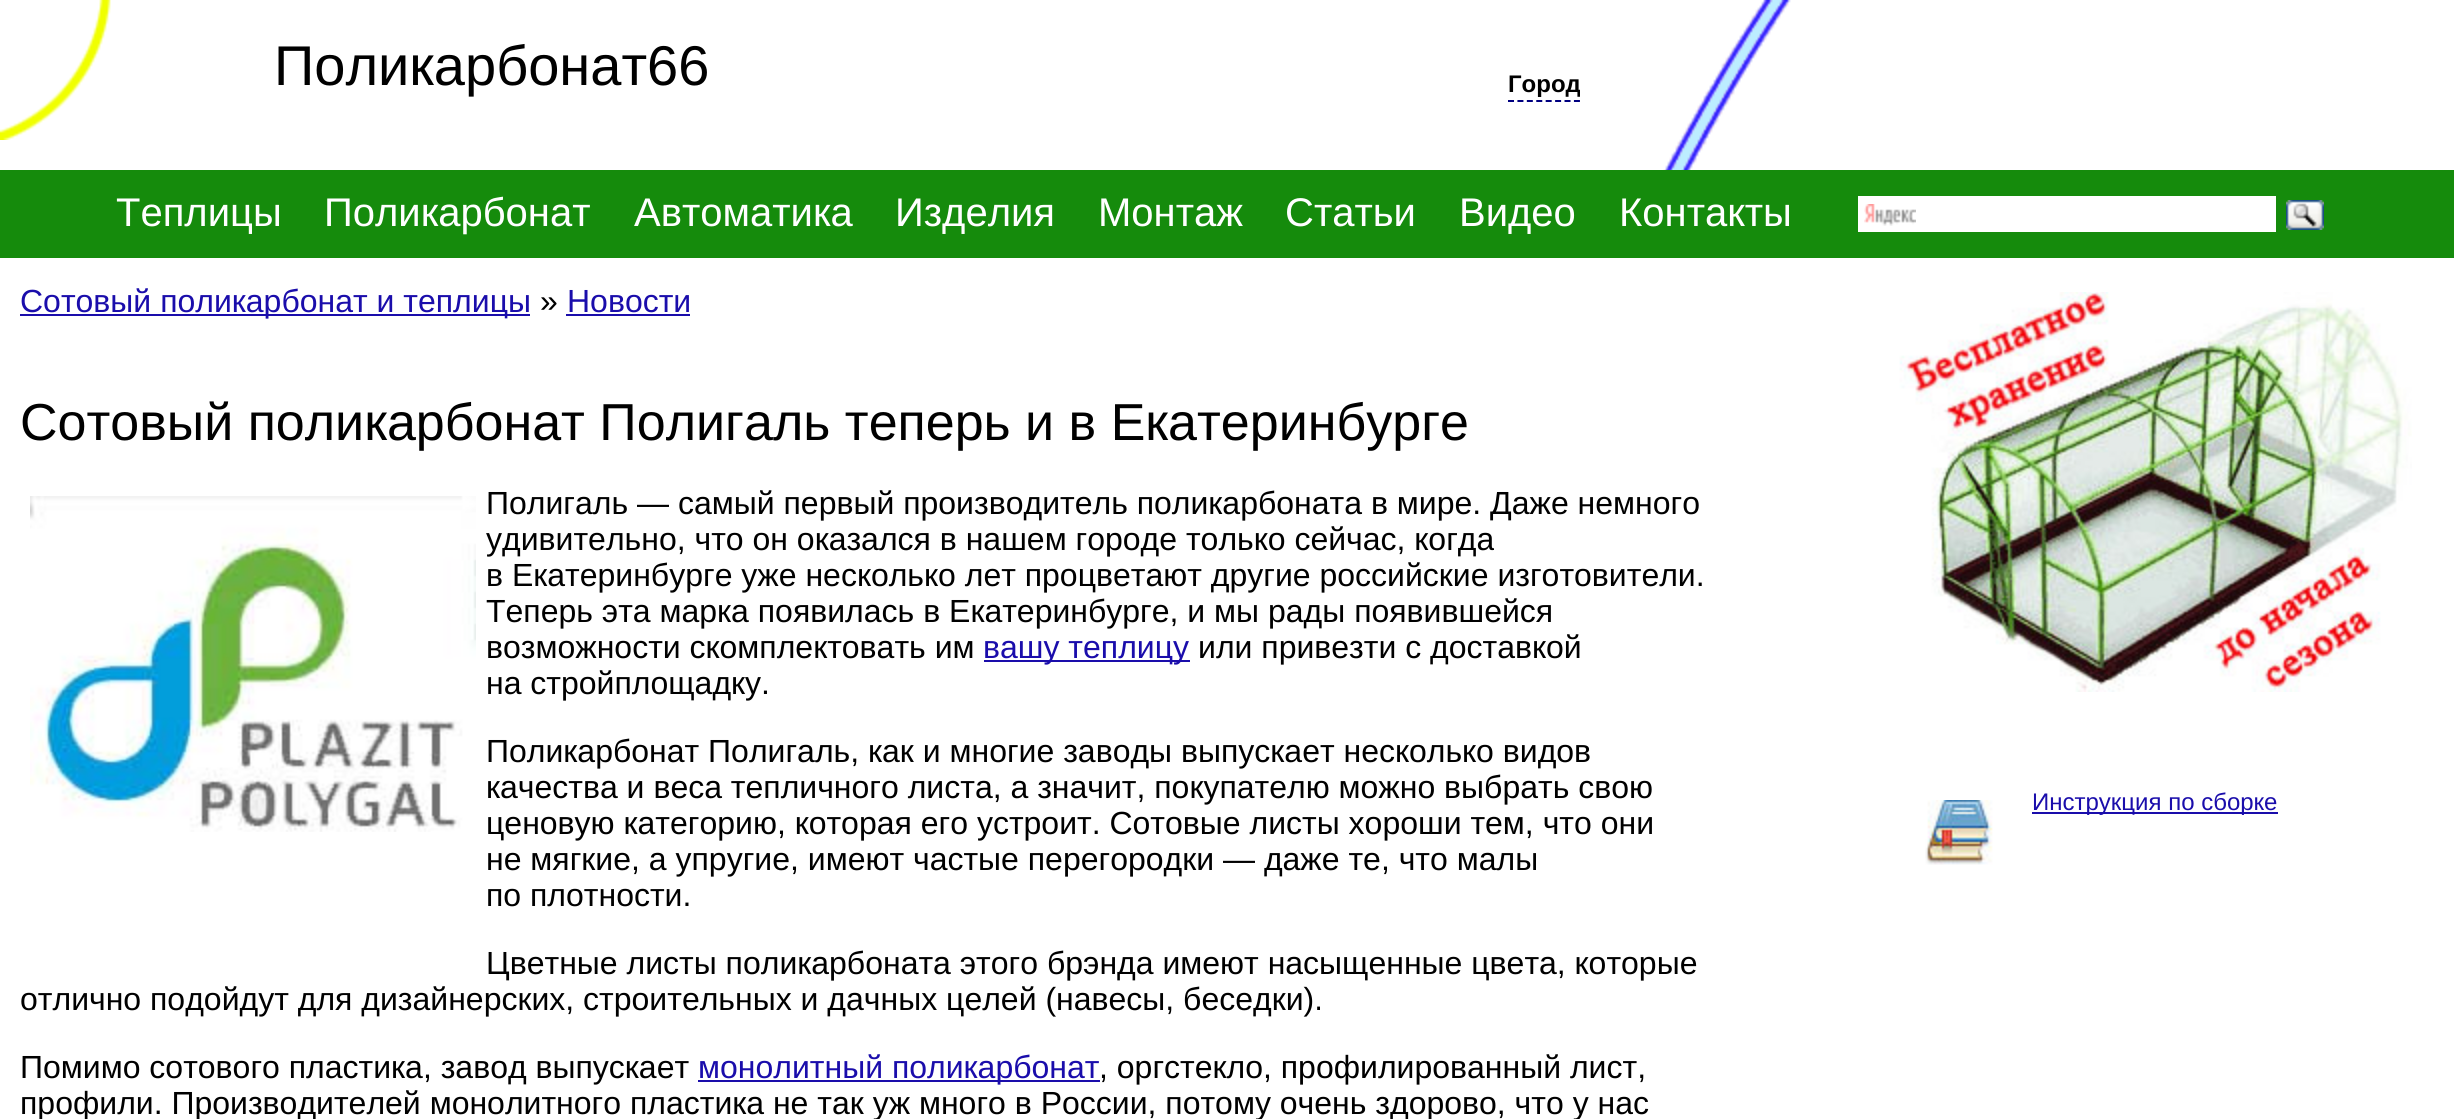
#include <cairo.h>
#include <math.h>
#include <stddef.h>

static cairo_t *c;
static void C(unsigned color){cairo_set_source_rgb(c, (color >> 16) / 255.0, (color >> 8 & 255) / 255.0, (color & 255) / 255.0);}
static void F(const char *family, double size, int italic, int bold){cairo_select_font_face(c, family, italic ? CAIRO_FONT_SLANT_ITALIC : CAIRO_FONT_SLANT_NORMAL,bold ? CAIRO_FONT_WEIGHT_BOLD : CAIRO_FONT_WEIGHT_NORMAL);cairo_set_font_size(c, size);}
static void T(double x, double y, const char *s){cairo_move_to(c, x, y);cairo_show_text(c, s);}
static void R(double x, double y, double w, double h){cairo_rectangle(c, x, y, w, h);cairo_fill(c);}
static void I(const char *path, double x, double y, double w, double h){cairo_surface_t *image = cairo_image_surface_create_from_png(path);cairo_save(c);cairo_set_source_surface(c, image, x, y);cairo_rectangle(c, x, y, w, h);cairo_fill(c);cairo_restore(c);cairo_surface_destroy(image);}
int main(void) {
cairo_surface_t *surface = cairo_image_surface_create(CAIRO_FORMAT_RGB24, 2454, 1119);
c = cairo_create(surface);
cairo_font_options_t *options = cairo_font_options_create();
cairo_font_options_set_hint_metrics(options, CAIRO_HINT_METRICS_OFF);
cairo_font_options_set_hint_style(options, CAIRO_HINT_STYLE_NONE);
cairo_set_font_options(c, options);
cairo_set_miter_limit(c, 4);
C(0xffffff);
cairo_paint(c);
I("1.png",1655,0,136,170);
I("2.png",0,0,111,140);
F("Liberation Sans",56,0,0);
C(0x000000);
T(274,85,"Поликарбонат66");
C(0x1a0dab);
R(20,314,510,2);
F("Liberation Sans",32,0,0);
T(20,312,"Сотовый поликарбонат и теплицы");
C(0x000000);
T(540,312,"»");
C(0x1a0dab);
T(567,312,"Новости");
R(566,314,124,2);
F("Liberation Sans",52,0,0);
C(0x000000);
T(20,440,"Сотовый поликарбонат Полигаль теперь и в Екатеринбурге");
I("3.png",30,496,446,336);
F("Liberation Sans",32,0,0);
T(486,514,"Полигаль — самый первый производитель поликарбоната в мире. Даже немного");
T(486,550,"удивительно, что он оказался в нашем городе только сейчас, когда");
T(486,586,"в Екатеринбурге уже несколько лет процветают другие российские изготовители.");
T(486,622,"Теперь эта марка появилась в Екатеринбурге, и мы рады появившейся");
T(486,658,"возможности скомплектовать им");
C(0x1a0dab);
R(984,660,206,2);
T(983,658,"вашу теплицу");
C(0x000000);
T(1198,658,"или привезти с доставкой");
T(486,694,"на стройплощадку.");
T(486,762,"Поликарбонат Полигаль, как и многие заводы выпускает несколько видов");
T(486,798,"качества и веса тепличного листа, а значит, покупателю можно выбрать свою");
T(486,834,"ценовую категорию, которая его устроит. Сотовые листы хороши тем, что они");
T(486,870,"не мягкие, а упругие, имеют частые перегородки — даже те, что малы");
T(486,906,"по плотности.");
T(486,974,"Цветные листы поликарбоната этого брэнда имеют насыщенные цвета, которые");
T(20,1010,"отлично подойдут для дизайнерских, строительных и дачных целей (навесы, беседки).");
T(20,1078,"Помимо сотового пластика, завод выпускает");
C(0x1a0dab);
R(698,1080,402,2);
T(698,1078,"монолитный поликарбонат");
C(0x000000);
T(1099,1078,", оргстекло, профилированный лист,");
T(20,1114,"профили. Производителей монолитного пластика не так уж много в России, потому очень здорово, что у нас");
cairo_new_path(c);
cairo_move_to(c,1508,101);
cairo_line_to(c,1580,101);
C(0x000080);
cairo_set_dash(c,(double[]){6,3.42},2,0);
cairo_stroke(c);
cairo_save(c);
cairo_rectangle(c,1508,70,72,30);
cairo_clip(c);
F("Liberation Sans",24,0,1);
C(0x000000);
T(1508,92,"Город");
cairo_restore(c);
I("4.png",1899,292,513,400);
I("5.png",1925,800,68,65);
C(0x1a0dab);
R(2032,812,246,2);
F("Liberation Sans",24,0,0);
T(2032,810,"Инструкция по сборке");
C(0x158b0c);
R(0,170,2454,88);
F("Liberation Sans",40,0,0);
C(0xffffff);
T(116,226,"Теплицы");
T(324,226,"Поликарбонат");
T(634,226,"Автоматика");
T(895,226,"Изделия");
T(1098,226,"Монтаж");
T(1285,226,"Статьи");
T(1459,226,"Видео");
T(1619,226,"Контакты");
R(1858,196,418,36);
I("6.png",1864,204,52,22);
I("7.png",2286,200,38,30);
cairo_surface_write_to_png(surface, "o.png");
cairo_font_options_destroy(options);
cairo_destroy(c);
cairo_surface_destroy(surface);
return 0;
}
